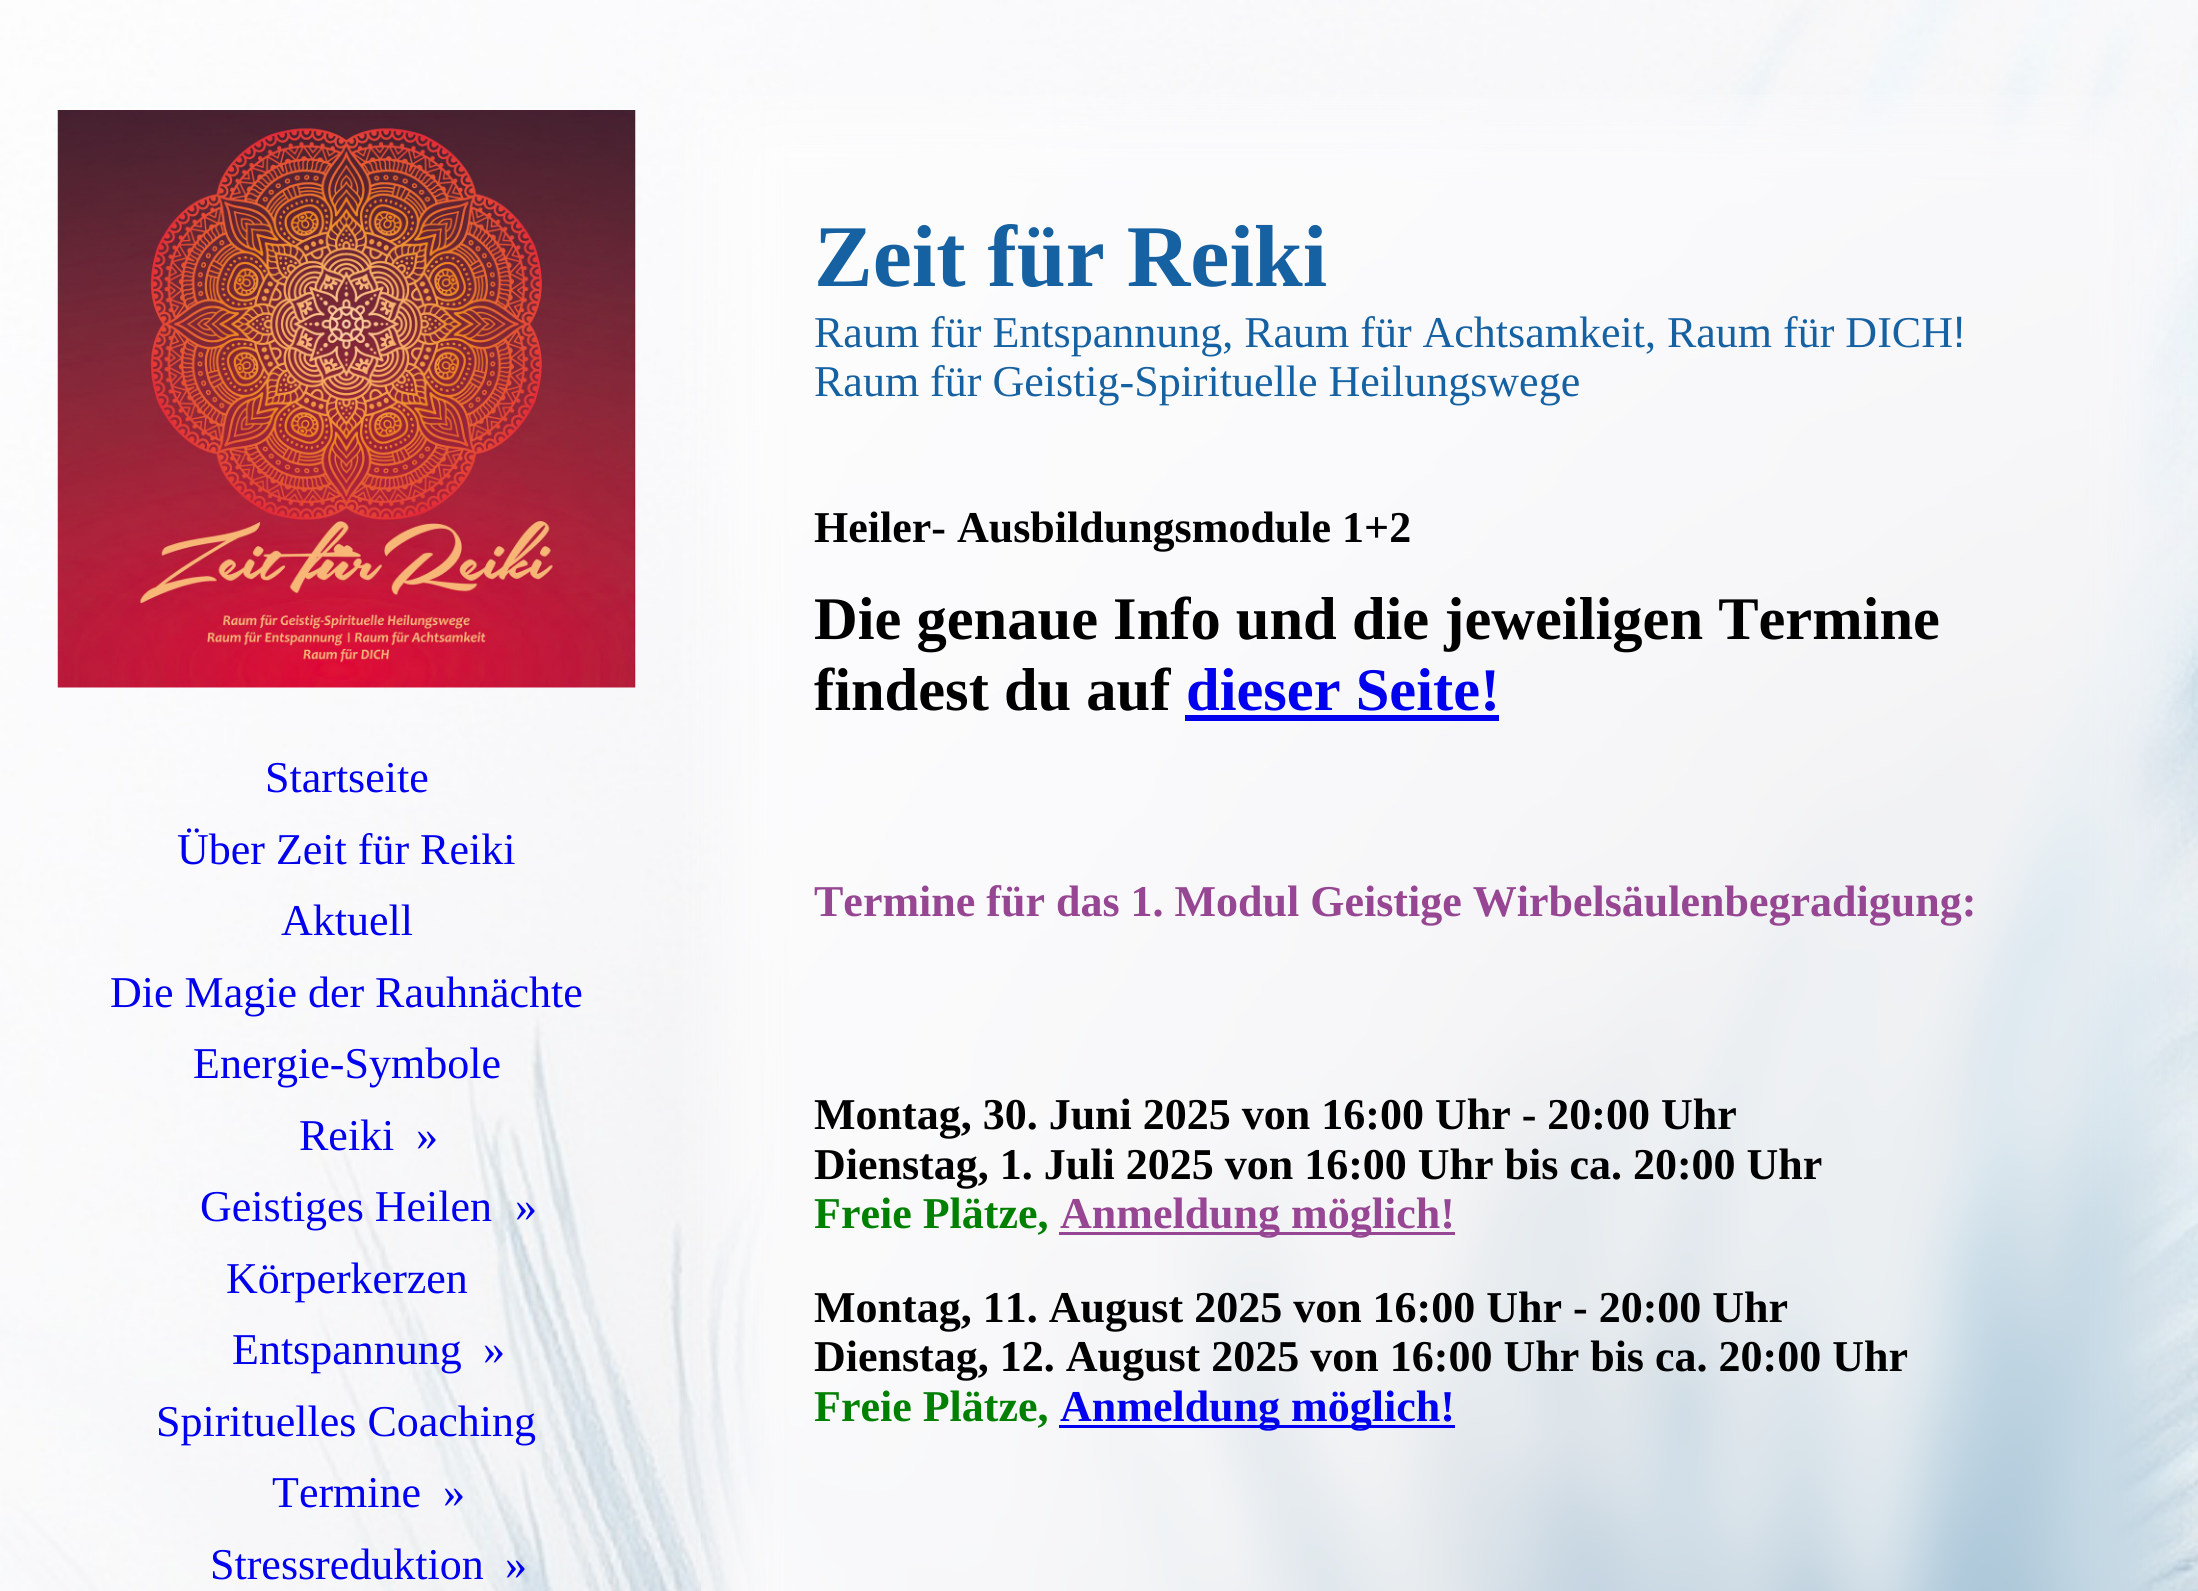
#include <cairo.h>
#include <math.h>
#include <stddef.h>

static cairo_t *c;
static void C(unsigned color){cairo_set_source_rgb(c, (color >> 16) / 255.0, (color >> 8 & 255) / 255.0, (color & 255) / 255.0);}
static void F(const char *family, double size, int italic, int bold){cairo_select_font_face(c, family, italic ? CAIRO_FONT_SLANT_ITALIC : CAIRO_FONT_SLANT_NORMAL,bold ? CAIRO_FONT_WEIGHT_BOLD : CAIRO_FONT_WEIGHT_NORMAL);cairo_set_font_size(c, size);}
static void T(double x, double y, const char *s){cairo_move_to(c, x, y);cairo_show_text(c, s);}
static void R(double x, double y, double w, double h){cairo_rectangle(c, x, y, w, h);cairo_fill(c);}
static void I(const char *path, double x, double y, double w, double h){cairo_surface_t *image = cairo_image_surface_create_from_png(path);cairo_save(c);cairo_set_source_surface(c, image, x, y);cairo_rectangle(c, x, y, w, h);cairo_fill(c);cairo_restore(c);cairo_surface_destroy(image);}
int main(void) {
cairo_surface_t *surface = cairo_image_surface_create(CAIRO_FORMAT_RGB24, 2198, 1591);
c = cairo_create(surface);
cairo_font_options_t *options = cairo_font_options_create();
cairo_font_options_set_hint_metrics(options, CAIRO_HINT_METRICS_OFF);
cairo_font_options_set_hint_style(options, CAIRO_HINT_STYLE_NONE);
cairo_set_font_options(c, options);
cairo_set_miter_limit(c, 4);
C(0xffffff);
cairo_paint(c);
I("1.png",0,0,2198,1591);
I("2.png",57,110,579,578);
F("Liberation Serif",44,0,0);
C(0x0000ee);
T(265,792,"Startseite");
T(177,864,"Über Zeit für Reiki");
T(281,935,"Aktuell");
T(110,1007,"Die Magie der Rauhnächte");
T(193,1078,"Energie-Symbole");
T(299,1150,"Reiki");
T(416,1150,"»");
T(200,1221,"Geistiges Heilen");
T(515,1221,"»");
T(226,1293,"Körperkerzen");
T(232,1364,"Entspannung");
T(483,1364,"»");
T(156,1436,"Spirituelles Coaching");
T(272,1507,"Termine");
T(443,1507,"»");
T(210,1579,"Stressreduktion");
T(505,1579,"»");
I("3.png",682,95,1510,1496);
F("Liberation Serif",88,0,1);
C(0x1561a2);
T(814,286,"Zeit für Reiki");
F("Liberation Serif",44,0,0);
T(814,347,"Raum für Entspannung, Raum für Achtsamkeit, Raum für DICH");
F("Liberation Sans",44,0,0);
T(1953,347,"!");
F("Liberation Serif",44,0,0);
T(814,396,"Raum für Geistig-Spirituelle Heilungswege");
F("Liberation Serif",44,0,1);
C(0x000000);
T(814,542,"Heiler- Ausbildungsmodule 1+2");
F("Liberation Serif",60.5,0,1);
T(814,639,"Die genaue Info und die jeweiligen Termine");
T(814,710,"findest du auf");
C(0x0000ee);
T(1186,710,"dieser Seite!");
R(1185,715,314,6);
F("Liberation Serif",44,0,1);
C(0x964692);
T(814,916,"Termine für das 1. Modul Geistige Wirbelsäulenbegradigung:");
C(0x000000);
T(814,1129,"Montag, 30. Juni 2025 von 16:00 Uhr - 20:00 Uhr");
T(814,1179,"Dienstag, 1. Juli 2025 von 16:00 Uhr bis ca. 20:00 Uhr");
C(0x008000);
T(814,1228,"Freie Plätze,");
C(0x964692);
R(1059,1232,396,3);
T(1060,1228,"Anmeldung möglich!");
C(0x000000);
T(814,1322,"Montag, 11. August 2025 von 16:00 Uhr - 20:00 Uhr");
T(814,1371,"Dienstag, 12. August 2025 von 16:00 Uhr bis ca. 20:00 Uhr");
C(0x008000);
T(814,1421,"Freie Plätze,");
C(0x0000ee);
R(1059,1425,396,3);
T(1060,1421,"Anmeldung möglich!");
cairo_surface_write_to_png(surface, "o.png");
cairo_font_options_destroy(options);
cairo_destroy(c);
cairo_surface_destroy(surface);
return 0;
}
